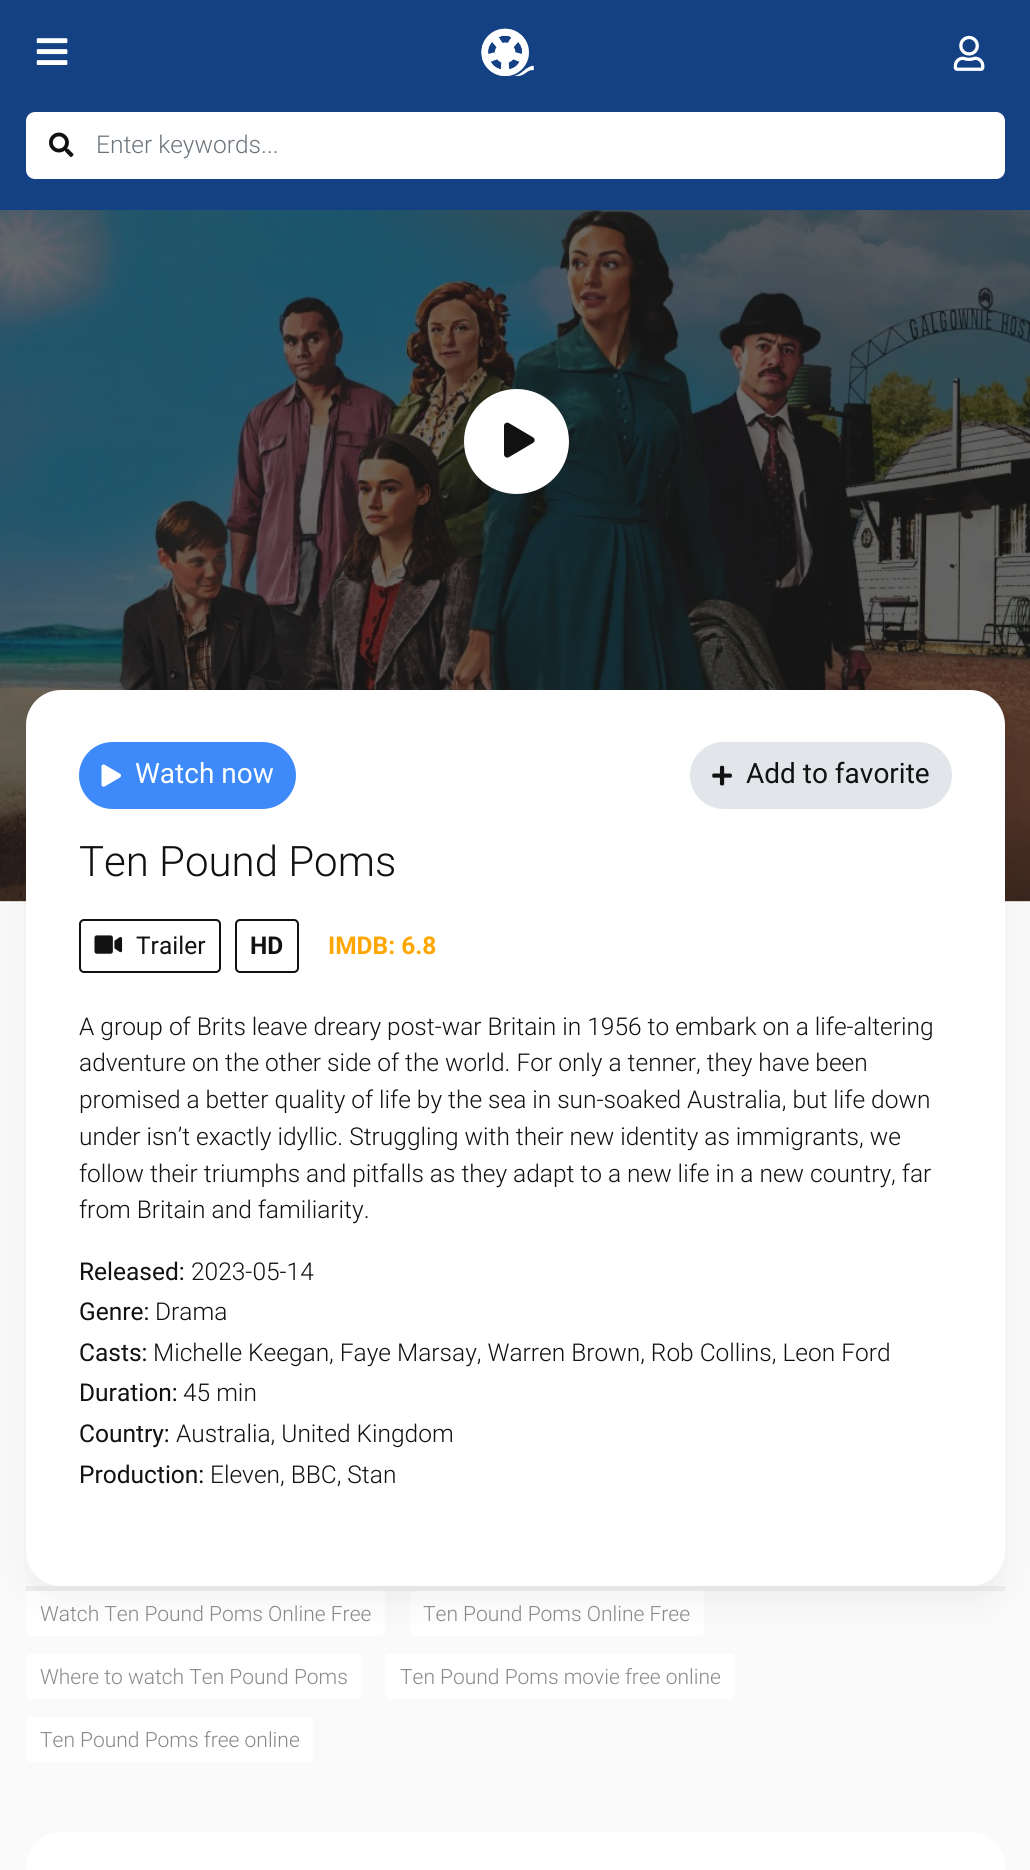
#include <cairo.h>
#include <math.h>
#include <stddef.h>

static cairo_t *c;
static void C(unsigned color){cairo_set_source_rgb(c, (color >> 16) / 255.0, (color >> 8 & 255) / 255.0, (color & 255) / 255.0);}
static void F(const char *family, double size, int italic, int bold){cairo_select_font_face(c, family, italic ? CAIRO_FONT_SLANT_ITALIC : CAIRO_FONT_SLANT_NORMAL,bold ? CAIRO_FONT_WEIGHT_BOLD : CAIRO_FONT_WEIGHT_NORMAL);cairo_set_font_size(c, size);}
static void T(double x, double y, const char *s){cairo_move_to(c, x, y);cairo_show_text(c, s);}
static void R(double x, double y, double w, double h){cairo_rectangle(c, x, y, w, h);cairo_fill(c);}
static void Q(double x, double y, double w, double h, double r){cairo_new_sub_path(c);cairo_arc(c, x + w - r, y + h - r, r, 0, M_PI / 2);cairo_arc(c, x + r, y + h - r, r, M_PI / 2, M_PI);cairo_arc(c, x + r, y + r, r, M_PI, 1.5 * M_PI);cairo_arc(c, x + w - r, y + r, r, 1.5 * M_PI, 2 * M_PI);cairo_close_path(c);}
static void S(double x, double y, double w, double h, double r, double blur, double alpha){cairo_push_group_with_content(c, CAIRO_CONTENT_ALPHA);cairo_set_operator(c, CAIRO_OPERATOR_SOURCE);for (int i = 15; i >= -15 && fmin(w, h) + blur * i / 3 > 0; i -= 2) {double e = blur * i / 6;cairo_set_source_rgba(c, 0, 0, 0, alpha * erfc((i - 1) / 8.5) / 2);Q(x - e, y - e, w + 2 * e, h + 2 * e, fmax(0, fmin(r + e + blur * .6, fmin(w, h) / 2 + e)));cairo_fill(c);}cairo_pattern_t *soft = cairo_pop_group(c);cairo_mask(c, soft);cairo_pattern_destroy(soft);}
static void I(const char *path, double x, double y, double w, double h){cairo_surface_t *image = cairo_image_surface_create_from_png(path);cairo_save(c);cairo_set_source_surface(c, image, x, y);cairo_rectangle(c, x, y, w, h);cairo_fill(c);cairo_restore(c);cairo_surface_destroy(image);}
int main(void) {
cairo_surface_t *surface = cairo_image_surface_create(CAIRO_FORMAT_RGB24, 1030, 1870);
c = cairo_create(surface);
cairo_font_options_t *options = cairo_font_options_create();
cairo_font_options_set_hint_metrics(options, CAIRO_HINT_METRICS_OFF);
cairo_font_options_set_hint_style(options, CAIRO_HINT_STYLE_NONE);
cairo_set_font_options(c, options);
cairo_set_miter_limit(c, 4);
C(0xfafafa);
cairo_paint(c);
C(0x144184);
R(0,0,1030,210);
I("1.png",36,38,32,27);
I("2.png",481,28,53,48);
I("3.png",953,35,32,36);
C(0xffffff);
Q(26,112,979,67,9);
cairo_fill(c);
I("4.png",49,132,25,25);
F("Roboto Light",24.5,0,0);
C(0x6c757d);
T(96,153,"Enter keywords...");
I("5.png",0,210,1030,692);
C(0xffffff);
cairo_arc(c,516.5,441.5,52.5,0,2 * M_PI);
cairo_fill(c);
I("6.png",504,422,31,36);
C(0xeeeeee);
R(26,1586,979,5);
C(0xffffff);
Q(26,1591,359,45,5);
cairo_fill(c);
Q(410,1591,294,45,5);
cairo_fill(c);
Q(26,1654,336,45,5);
cairo_fill(c);
Q(385,1654,350,45,5);
cairo_fill(c);
C(0x000000);
S(26,707,979,896,35,17.5,.05);
C(0xffffff);
Q(26,690,979,896,35);
cairo_fill(c);
C(0x3e8afa);
Q(80,743,215,65,32.5);
cairo_fill_preserve(c);
cairo_stroke(c);
I("7.png",101,764,21,23);
F("Roboto",28,0,0);
C(0xffffff);
T(135,783,"Watch now");
C(0xe2e6ea);
Q(691,743,260,65,32.5);
cairo_fill_preserve(c);
cairo_stroke(c);
I("8.png",712,765,20,21);
C(0x111111);
T(746,783,"Add to favorite");
F("Roboto Light",42,0,0);
T(79,876,"Ten Pound Poms");
Q(80,920,140,52,4);
cairo_stroke(c);
I("9.png",94,935,29,19);
F("Roboto",24.5,0,0);
T(136,954,"Trailer");
Q(236,920,62,52,4);
cairo_stroke(c);
F("Roboto",24.5,0,1);
T(250,954,"HD");
C(0xffa600);
T(328,954,"IMDB: 6.8");
F("Roboto Light",24.5,0,0);
C(0x111111);
T(79,1035,"A group of Brits leave dreary post-war Britain in 1956 to embark on a life-altering");
T(79,1071,"adventure on the other side of the world. For only a tenner, they have been");
T(79,1108,"promised a better quality of life by the sea in sun-soaked Australia, but life down");
T(79,1145,"under isn’t exactly idyllic. Struggling with their new identity as immigrants, we");
T(79,1182,"follow their triumphs and pitfalls as they adapt to a new life in a new country, far");
T(79,1218,"from Britain and familiarity.");
F("Roboto",24.5,0,0);
T(79,1280,"Released:");
F("Roboto Light",24.5,0,0);
T(191,1280,"2023-05-14");
F("Roboto",24.5,0,0);
T(79,1320,"Genre:");
F("Roboto Light",24.5,0,0);
T(155,1320,"Drama");
F("Roboto",24.5,0,0);
T(79,1361,"Casts:");
F("Roboto Light",24.5,0,0);
T(153,1361,"Michelle Keegan, Faye Marsay, Warren Brown, Rob Collins, Leon Ford");
F("Roboto",24.5,0,0);
T(79,1401,"Duration:");
F("Roboto Light",24.5,0,0);
T(183,1401,"45 min");
F("Roboto",24.5,0,0);
T(79,1442,"Country:");
F("Roboto Light",24.5,0,0);
T(176,1442,"Australia, United Kingdom");
F("Roboto",24.5,0,0);
T(79,1483,"Production:");
F("Roboto Light",24.5,0,0);
T(210,1483,"Eleven, BBC, Stan");
F("Roboto Light",21,0,0);
C(0x888888);
T(40,1621,"Watch Ten Pound Poms Online Free");
T(423,1621,"Ten Pound Poms Online Free");
T(40,1684,"Where to watch Ten Pound Poms");
T(400,1684,"Ten Pound Poms movie free online");
C(0xffffff);
Q(26,1717,287,45,5);
cairo_fill(c);
C(0x888888);
T(40,1747,"Ten Pound Poms free online");
C(0xffffff);
Q(26,1832,979,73,35);
cairo_fill(c);
cairo_surface_write_to_png(surface, "o.png");
cairo_font_options_destroy(options);
cairo_destroy(c);
cairo_surface_destroy(surface);
return 0;
}
